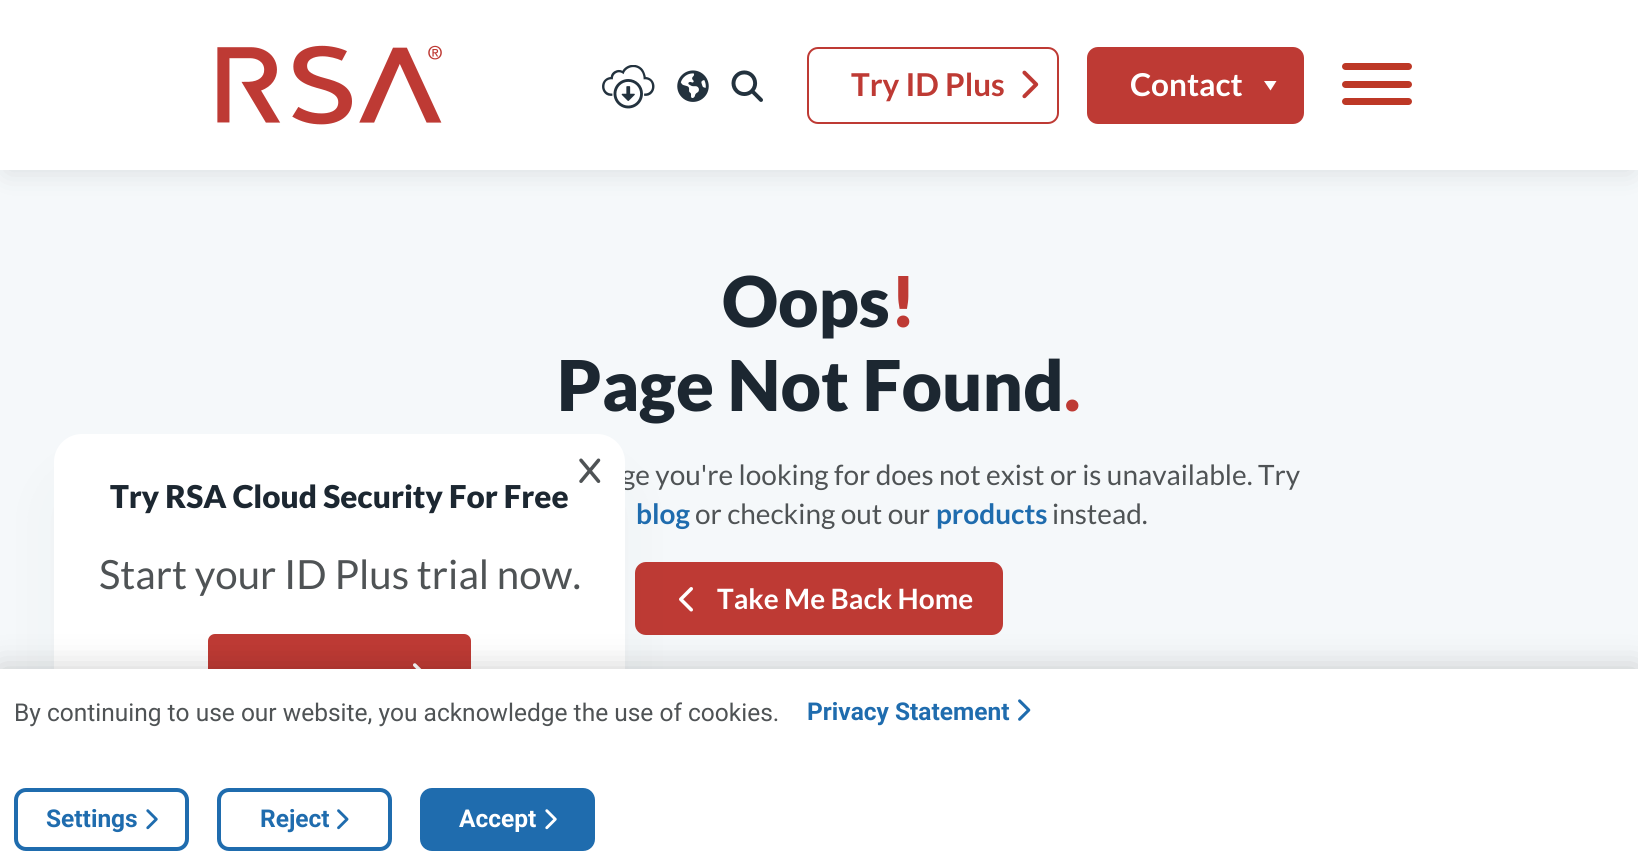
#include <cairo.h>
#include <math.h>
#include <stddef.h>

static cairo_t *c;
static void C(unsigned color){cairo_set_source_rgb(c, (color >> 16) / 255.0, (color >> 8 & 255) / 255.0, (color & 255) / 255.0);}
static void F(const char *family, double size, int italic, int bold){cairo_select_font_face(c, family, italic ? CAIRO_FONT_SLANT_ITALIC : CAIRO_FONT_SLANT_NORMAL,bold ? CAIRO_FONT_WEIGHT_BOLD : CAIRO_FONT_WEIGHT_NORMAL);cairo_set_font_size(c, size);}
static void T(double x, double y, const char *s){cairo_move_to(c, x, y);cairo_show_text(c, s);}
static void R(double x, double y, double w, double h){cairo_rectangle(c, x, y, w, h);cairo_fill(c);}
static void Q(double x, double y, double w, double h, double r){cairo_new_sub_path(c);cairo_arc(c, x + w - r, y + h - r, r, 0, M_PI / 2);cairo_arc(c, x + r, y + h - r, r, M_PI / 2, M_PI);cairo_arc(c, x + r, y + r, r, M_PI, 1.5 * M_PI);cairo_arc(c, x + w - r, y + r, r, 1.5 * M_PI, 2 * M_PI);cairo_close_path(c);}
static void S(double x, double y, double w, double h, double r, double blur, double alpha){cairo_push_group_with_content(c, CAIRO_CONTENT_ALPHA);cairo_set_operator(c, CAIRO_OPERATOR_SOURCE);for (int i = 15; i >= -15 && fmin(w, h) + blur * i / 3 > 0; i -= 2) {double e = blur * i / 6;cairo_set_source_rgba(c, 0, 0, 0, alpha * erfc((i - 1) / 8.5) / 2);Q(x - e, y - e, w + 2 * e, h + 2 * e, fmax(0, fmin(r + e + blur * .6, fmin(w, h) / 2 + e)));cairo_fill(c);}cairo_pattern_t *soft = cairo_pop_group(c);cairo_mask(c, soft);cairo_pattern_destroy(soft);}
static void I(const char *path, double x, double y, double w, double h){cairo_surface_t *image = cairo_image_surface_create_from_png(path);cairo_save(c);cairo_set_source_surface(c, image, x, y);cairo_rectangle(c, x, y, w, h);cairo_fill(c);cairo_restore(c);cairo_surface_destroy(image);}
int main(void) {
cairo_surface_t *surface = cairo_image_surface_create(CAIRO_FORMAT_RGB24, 1638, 864);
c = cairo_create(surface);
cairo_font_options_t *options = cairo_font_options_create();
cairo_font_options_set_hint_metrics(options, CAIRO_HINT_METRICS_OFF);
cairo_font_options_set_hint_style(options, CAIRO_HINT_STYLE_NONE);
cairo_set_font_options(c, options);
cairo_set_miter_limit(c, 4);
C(0xf5f8fa);
cairo_paint(c);
C(0x23323e);
S(7,14,1624,156,0,14,.15);
C(0xffffff);
R(0,0,1638,170);
I("1.png",217,45,225,80);
I("2.png",602,65,53,44);
I("3.png",677,70,32,32);
I("4.png",731,70,32,32);
Q(808,48,250,75,10);
C(0xbe3a34);
cairo_stroke(c);
F("Lato",31.5,0,1);
T(851,96,"Try ID Plus");
I("5.png",1022,70,17,29);
Q(1088,48,215,75,10);
cairo_fill_preserve(c);
cairo_stroke(c);
C(0xffffff);
T(1130,96,"Contact");
cairo_new_path(c);
cairo_move_to(c,1276.5,81);
cairo_line_to(c,1270.5,90.5);
cairo_line_to(c,1264,81);
cairo_close_path(c);
cairo_fill(c);
C(0xbd3826);
Q(1342,63,70,7,3.5);
cairo_fill(c);
Q(1342,81,70,7,3.5);
cairo_fill(c);
Q(1342,98,70,7,3.5);
cairo_fill(c);
C(0xbe3a34);
Q(636,563,366,71,10);
cairo_fill_preserve(c);
cairo_stroke(c);
I("8.png",679,587,14,25);
C(0x23323e);
S(68,490,543,301,14,35,.06);
F("Lato",28,0,0);
C(0x4f5355);
T(621,485,"ge you're looking for does not exist or is unavailable. Try");
C(0xffffff);
Q(54,434,571,329,28);
cairo_fill(c);
I("6.png",579,458,22,25);
F("Lato Black",31.5,0,0);
C(0x1c2731);
T(110,508,"Try RSA Cloud Security For Free");
F("Lato",40.25,0,0);
C(0x4f5355);
T(99,589,"Start your ID Plus trial now.");
C(0xbe3a34);
Q(209,635,261,85,6);
cairo_fill_preserve(c);
cairo_stroke(c);
I("7.png",413,663,9,6);
F("Lato Black",70,0,0);
C(0x1c2731);
T(722,327,"Oops");
C(0xbe3a34);
T(890,327,"!");
C(0x1c2731);
T(557,411,"Page Not Found");
C(0xbe3a34);
T(1064,411,".");
F("Lato",28,0,1);
C(0x1f6cae);
T(636,524,"blog");
F("Lato",28,0,0);
C(0x4f5355);
T(695,524,"or checking out our");
F("Lato",28,0,1);
C(0x1f6cae);
T(936,524,"products");
F("Lato",28,0,0);
C(0x4f5355);
T(1052,524,"instead.");
F("Lato",28,0,1);
C(0xffffff);
T(717,609,"Take Me Back Home");
C(0x000000);
S(0,669,1638,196,0,16,.2);
C(0xffffff);
R(0,669,1638,195);
F("Roboto",24.5,0,0);
C(0x4f5355);
T(14,721,"By continuing to use our website, you acknowledge the use of cookies.");
F("Roboto",24.5,0,1);
C(0x1f6cae);
T(807,720,"Privacy Statement");
I("9.png",1018,699,13,22);
Q(16,790,171,59,10);
cairo_set_line_width(c,4);
cairo_stroke(c);
T(46,827,"Settings");
I("10.png",146,809,12,21);
Q(219,790,171,59,10);
cairo_stroke(c);
T(260,827,"Reject");
I("11.png",337,809,12,21);
Q(422,790,171,59,10);
cairo_fill_preserve(c);
cairo_stroke(c);
C(0xffffff);
T(459,827,"Accept");
I("12.png",545,809,12,21);
cairo_surface_write_to_png(surface, "o.png");
cairo_font_options_destroy(options);
cairo_destroy(c);
cairo_surface_destroy(surface);
return 0;
}
